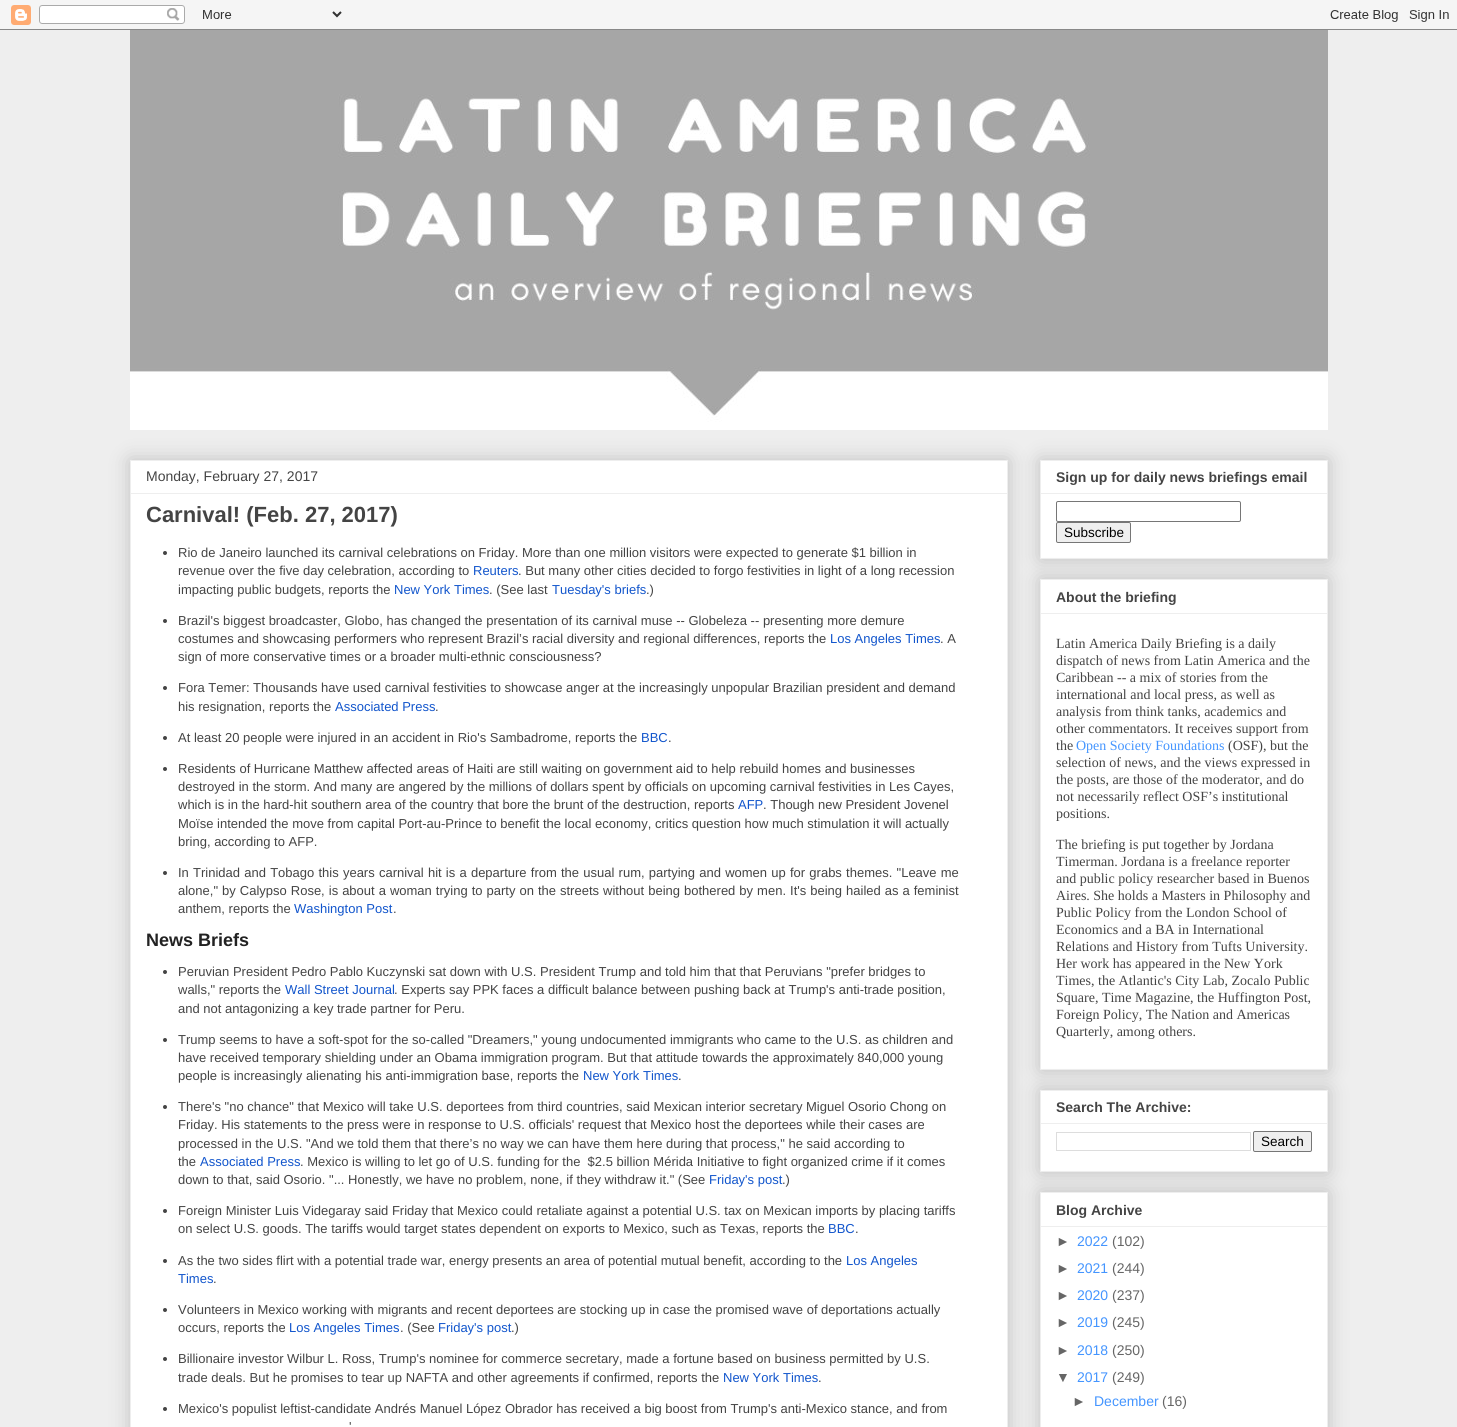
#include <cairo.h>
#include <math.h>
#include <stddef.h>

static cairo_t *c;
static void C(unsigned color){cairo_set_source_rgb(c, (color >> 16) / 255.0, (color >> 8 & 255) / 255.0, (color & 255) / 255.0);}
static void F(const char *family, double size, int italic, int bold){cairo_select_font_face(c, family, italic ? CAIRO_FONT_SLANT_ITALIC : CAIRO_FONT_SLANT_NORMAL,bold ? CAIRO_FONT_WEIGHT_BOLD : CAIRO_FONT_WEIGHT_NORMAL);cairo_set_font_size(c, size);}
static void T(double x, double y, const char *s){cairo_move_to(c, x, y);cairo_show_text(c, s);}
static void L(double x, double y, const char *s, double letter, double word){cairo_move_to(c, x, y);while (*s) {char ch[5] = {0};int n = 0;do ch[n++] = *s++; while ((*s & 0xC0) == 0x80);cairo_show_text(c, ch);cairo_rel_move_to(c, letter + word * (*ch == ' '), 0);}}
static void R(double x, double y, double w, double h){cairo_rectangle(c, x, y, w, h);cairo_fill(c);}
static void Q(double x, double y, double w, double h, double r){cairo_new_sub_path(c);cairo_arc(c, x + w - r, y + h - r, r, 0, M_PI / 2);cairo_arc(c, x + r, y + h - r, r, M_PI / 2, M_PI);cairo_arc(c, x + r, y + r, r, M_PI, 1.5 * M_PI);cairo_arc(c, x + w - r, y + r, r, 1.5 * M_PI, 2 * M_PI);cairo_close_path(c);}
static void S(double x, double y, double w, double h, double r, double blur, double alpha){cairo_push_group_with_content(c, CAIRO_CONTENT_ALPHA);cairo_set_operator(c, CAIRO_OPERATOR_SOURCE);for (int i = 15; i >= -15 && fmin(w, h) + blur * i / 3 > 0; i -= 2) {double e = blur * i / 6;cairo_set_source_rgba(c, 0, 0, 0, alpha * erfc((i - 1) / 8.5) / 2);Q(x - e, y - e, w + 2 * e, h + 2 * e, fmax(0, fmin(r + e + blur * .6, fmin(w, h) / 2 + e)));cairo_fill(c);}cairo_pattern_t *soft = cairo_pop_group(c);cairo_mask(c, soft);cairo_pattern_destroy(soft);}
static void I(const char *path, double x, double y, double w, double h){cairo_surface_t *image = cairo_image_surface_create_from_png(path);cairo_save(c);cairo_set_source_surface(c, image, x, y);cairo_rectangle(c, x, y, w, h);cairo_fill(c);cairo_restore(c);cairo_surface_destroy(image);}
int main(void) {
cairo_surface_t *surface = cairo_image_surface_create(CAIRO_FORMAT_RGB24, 1457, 1427);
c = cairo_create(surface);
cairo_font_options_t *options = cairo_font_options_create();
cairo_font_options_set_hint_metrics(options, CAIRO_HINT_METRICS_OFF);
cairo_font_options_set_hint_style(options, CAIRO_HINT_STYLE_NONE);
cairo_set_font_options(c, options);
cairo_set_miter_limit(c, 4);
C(0xeeeeee);
cairo_paint(c);
I("1.png",0,0,1457,30);
I("2.png",130,30,1198,400);
C(0x000000);
S(130,460,878,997,0,10,.2);
C(0xffffff);
cairo_rectangle(c,130.5,460.5,877,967);
cairo_fill_preserve(c);
C(0xeeeeee);
cairo_set_line_width(c,1);
cairo_stroke(c);
F("Liberation Sans",14,0,0);
C(0x444444);
T(146,481,"Monday, February 27, 2017");
C(0xeeeeee);
R(131,493,876,1);
F("Liberation Sans",22,0,1);
C(0x444444);
T(146,522,"Carnival! (Feb. 27, 2017)");
cairo_new_path(c);
cairo_arc(c,165,553,2,0,2 * M_PI);
cairo_fill(c);
F("Liberation Sans",13,0,0);
T(178,557,"Rio de Janeiro launched its carnival celebrations on Friday. More than one million visitors were expected to generate $1 billion in");
T(178,575,"revenue over the five day celebration, according to");
C(0x1155cc);
T(473,575,"Reuters");
C(0x444444);
T(518,575,". But many other cities decided to forgo festivities in light of a long recession");
T(178,594,"impacting public budgets, reports the");
C(0x1155cc);
T(394,594,"New York Times");
C(0x444444);
T(489,594,". (See last");
C(0x1155cc);
T(552,594,"Tuesday's briefs");
C(0x444444);
T(646,594,".)");
cairo_new_path(c);
cairo_arc(c,165,621,2,0,2 * M_PI);
cairo_fill(c);
T(178,625,"Brazil's biggest broadcaster, Globo, has changed the presentation of its carnival muse -- Globeleza -- presenting more demure");
T(178,643,"costumes and showcasing performers who represent Brazil’s racial diversity and regional differences, reports the");
C(0x1155cc);
T(830,643,"Los Angeles Times");
C(0x444444);
T(940,643,". A");
T(178,661,"sign of more conservative times or a broader multi-ethnic consciousness?");
cairo_new_path(c);
cairo_arc(c,165,688,2,0,2 * M_PI);
cairo_fill(c);
T(178,692,"Fora Temer: Thousands have used carnival festivities to showcase anger at the increasingly unpopular Brazilian president and demand");
T(178,711,"his resignation, reports the");
C(0x1155cc);
T(335,711,"Associated Press");
C(0x444444);
T(435,711,".");
cairo_new_path(c);
cairo_arc(c,165,738,2,0,2 * M_PI);
cairo_fill(c);
T(178,742,"At least 20 people were injured in an accident in Rio's Sambadrome, reports the");
C(0x1155cc);
T(641,742,"BBC");
C(0x444444);
T(668,742,".");
cairo_new_path(c);
cairo_arc(c,165,769,2,0,2 * M_PI);
cairo_fill(c);
T(178,773,"Residents of Hurricane Matthew affected areas of Haiti are still waiting on government aid to help rebuild homes and businesses");
T(178,791,"destroyed in the storm. And many are angered by the millions of dollars spent by officials on upcoming carnival festivities in Les Cayes,");
T(178,809,"which is in the hard-hit southern area of the country that bore the brunt of the destruction, reports");
C(0x1155cc);
T(738,809,"AFP");
C(0x444444);
T(763,809,". Though new President Jovenel");
T(178,828,"Moïse intended the move from capital Port-au-Prince to benefit the local economy, critics question how much stimulation it will actually");
T(178,846,"bring, according to AFP.");
cairo_new_path(c);
cairo_arc(c,165,873,2,0,2 * M_PI);
cairo_fill(c);
L(178,877,"In Trinidad and Tobago this years carnival hit is a departure from the usual rum, partying and women up for grabs themes. \"Leave me",0,.6);
L(178,895,"alone,\" by Calypso Rose, is about a woman trying to party on the streets without being bothered by men. It's being hailed as a feminist",0,.4);
T(178,913,"anthem, reports the");
C(0x1155cc);
T(294,913,"Washington Post");
C(0x444444);
T(393,913,".");
F("Liberation Sans",18,0,1);
C(0x222222);
T(146,946,"News Briefs");
C(0x444444);
cairo_new_path(c);
cairo_arc(c,165,972,2,0,2 * M_PI);
cairo_fill(c);
F("Liberation Sans",13,0,0);
T(178,976,"Peruvian President Pedro Pablo Kuczynski sat down with U.S. President Trump and told him that that Peruvians \"prefer bridges to");
T(178,994,"walls,\" reports the");
C(0x1155cc);
T(285,994,"Wall Street Journal");
C(0x444444);
T(394,994,". Experts say PPK faces a difficult balance between pushing back at Trump's anti-trade position,");
T(178,1013,"and not antagonizing a key trade partner for Peru.");
cairo_new_path(c);
cairo_arc(c,165,1040,2,0,2 * M_PI);
cairo_fill(c);
T(178,1044,"Trump seems to have a soft-spot for the so-called \"Dreamers,\" young undocumented immigrants who came to the U.S. as children and");
T(178,1062,"have received temporary shielding under an Obama immigration program. But that attitude towards the approximately 840,000 young");
T(178,1080,"people is increasingly alienating his anti-immigration base, reports the");
C(0x1155cc);
T(583,1080,"New York Times");
C(0x444444);
T(678,1080,".");
cairo_new_path(c);
cairo_arc(c,165,1107,2,0,2 * M_PI);
cairo_fill(c);
T(178,1111,"There's \"no chance\" that Mexico will take U.S. deportees from third countries, said Mexican interior secretary Miguel Osorio Chong on");
T(178,1129,"Friday. His statements to the press were in response to U.S. officials' request that Mexico host the deportees while their cases are");
T(178,1148,"processed in the U.S. \"And we told them that there’s no way we can have them here during that process,\" he said according to");
T(178,1166,"the");
C(0x1155cc);
T(200,1166,"Associated Press");
C(0x444444);
T(300,1166,". Mexico is willing to let go of U.S. funding for the  $2.5 billion Mérida Initiative to fight organized crime if it comes");
T(178,1184,"down to that, said Osorio. \"... Honestly, we have no problem, none, if they withdraw it.\" (See");
C(0x1155cc);
T(709,1184,"Friday's post");
C(0x444444);
T(782,1184,".)");
cairo_new_path(c);
cairo_arc(c,165,1211,2,0,2 * M_PI);
cairo_fill(c);
T(178,1215,"Foreign Minister Luis Videgaray said Friday that Mexico could retaliate against a potential U.S. tax on Mexican imports by placing tariffs");
T(178,1233,"on select U.S. goods. The tariffs would target states dependent on exports to Mexico, such as Texas, reports the");
C(0x1155cc);
T(828,1233,"BBC");
C(0x444444);
T(855,1233,".");
cairo_new_path(c);
cairo_arc(c,165,1261,2,0,2 * M_PI);
cairo_fill(c);
T(178,1265,"As the two sides flirt with a potential trade war, energy presents an area of potential mutual benefit, according to the");
C(0x1155cc);
T(846,1265,"Los Angeles");
T(178,1283,"Times");
C(0x444444);
T(213,1283,".");
cairo_new_path(c);
cairo_arc(c,165,1310,2,0,2 * M_PI);
cairo_fill(c);
T(178,1314,"Volunteers in Mexico working with migrants and recent deportees are stocking up in case the promised wave of deportations actually");
T(178,1332,"occurs, reports the");
C(0x1155cc);
T(289,1332,"Los Angeles Times");
C(0x444444);
T(400,1332,". (See");
C(0x1155cc);
T(438,1332,"Friday's post");
C(0x444444);
T(511,1332,".)");
cairo_new_path(c);
cairo_arc(c,165,1359,2,0,2 * M_PI);
cairo_fill(c);
T(178,1363,"Billionaire investor Wilbur L. Ross, Trump's nominee for commerce secretary, made a fortune based on business permitted by U.S.");
T(178,1382,"trade deals. But he promises to tear up NAFTA and other agreements if confirmed, reports the");
C(0x1155cc);
T(723,1382,"New York Times");
C(0x444444);
T(818,1382,".");
cairo_new_path(c);
cairo_arc(c,165,1409,2,0,2 * M_PI);
cairo_fill(c);
T(178,1413,"Mexico's populist leftist-candidate Andrés Manuel López Obrador has received a big boost from Trump's anti-Mexico stance, and from");
T(349,1431,"'");
C(0x000000);
S(1040,460,288,99,0,10,.2);
C(0xffffff);
cairo_rectangle(c,1040.5,460.5,287,98);
cairo_fill_preserve(c);
C(0xeeeeee);
cairo_stroke(c);
F("Liberation Sans",14,0,1);
C(0x444444);
T(1056,482,"Sign up for daily news briefings email");
C(0xeeeeee);
R(1041,493,286,1);
Q(1056.5,501.5,184,20,1.5);
C(0x767676);
cairo_stroke(c);
C(0xefefef);
Q(1056.5,522.5,74,20,1.5);
cairo_fill_preserve(c);
C(0x767676);
cairo_stroke(c);
F("Liberation Sans",13.5,0,0);
C(0x000000);
T(1064,537,"Subscribe");
C(0x000000);
S(1040,579,288,491,0,10,.2);
C(0xffffff);
cairo_rectangle(c,1040.5,579.5,287,490);
cairo_fill_preserve(c);
C(0xeeeeee);
cairo_stroke(c);
F("Liberation Sans",14,0,1);
C(0x444444);
T(1056,602,"About the briefing");
C(0xeeeeee);
R(1041,613,286,1);
F("Liberation Serif",14,0,0);
C(0x444444);
T(1056,648,"Latin America Daily Briefing is a daily");
T(1056,665,"dispatch of news from Latin America and the");
T(1056,682,"Caribbean -- a mix of stories from the");
T(1056,699,"international and local press, as well as");
T(1056,716,"analysis from think tanks, academics and");
T(1056,733,"other commentators. It receives support from");
T(1056,750,"the");
C(0x4495ff);
T(1076,750,"Open Society Foundations");
C(0x444444);
T(1228,750,"(OSF), but the");
T(1056,767,"selection of news, and the views expressed in");
T(1056,784,"the posts, are those of the moderator, and do");
T(1056,801,"not necessarily reflect OSF’s institutional");
T(1056,818,"positions.");
T(1056,849,"The briefing is put together by Jordana");
T(1056,866,"Timerman. Jordana is a freelance reporter");
T(1056,883,"and public policy researcher based in Buenos");
T(1056,900,"Aires. She holds a Masters in Philosophy and");
T(1056,917,"Public Policy from the London School of");
T(1056,934,"Economics and a BA in International");
T(1056,951,"Relations and History from Tufts University.");
T(1056,968,"Her work has appeared in the New York");
T(1056,985,"Times, the Atlantic's City Lab, Zocalo Public");
T(1056,1002,"Square, Time Magazine, the Huffington Post,");
T(1056,1019,"Foreign Policy, The Nation and Americas");
T(1056,1036,"Quarterly, among others.");
C(0x000000);
S(1040,1090,288,82,0,10,.2);
C(0xffffff);
cairo_rectangle(c,1040.5,1090.5,287,81);
cairo_fill_preserve(c);
C(0xeeeeee);
cairo_stroke(c);
F("Liberation Sans",14,0,1);
C(0x444444);
T(1056,1112,"Search The Archive:");
C(0xeeeeee);
R(1041,1123,286,1);
cairo_rectangle(c,1056.5,1132.5,194,18);
C(0xdddddd);
cairo_stroke(c);
C(0xefefef);
Q(1253.5,1131.5,58,20,1.5);
cairo_fill_preserve(c);
C(0x767676);
cairo_stroke(c);
F("Liberation Sans",13.5,0,0);
C(0x000000);
T(1261,1146,"Search");
C(0x000000);
S(1040,1192,288,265,0,10,.2);
C(0xffffff);
cairo_rectangle(c,1040.5,1192.5,287,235);
cairo_fill_preserve(c);
C(0xeeeeee);
cairo_stroke(c);
F("Liberation Sans",14,0,1);
C(0x444444);
T(1056,1215,"Blog Archive");
C(0xeeeeee);
R(1041,1226,286,1);
F("Liberation Sans",14,0,0);
C(0x666666);
T(1056,1246,"►");
C(0x4495ff);
T(1077,1246,"2022");
C(0x666666);
T(1112,1246,"(102)");
T(1056,1273,"►");
C(0x4495ff);
T(1077,1273,"2021");
C(0x666666);
T(1112,1273,"(244)");
T(1056,1300,"►");
C(0x4495ff);
T(1077,1300,"2020");
C(0x666666);
T(1112,1300,"(237)");
T(1056,1327,"►");
C(0x4495ff);
T(1077,1327,"2019");
C(0x666666);
T(1112,1327,"(245)");
T(1056,1355,"►");
C(0x4495ff);
T(1077,1355,"2018");
C(0x666666);
T(1112,1355,"(250)");
T(1056,1382,"▼");
C(0x4495ff);
T(1077,1382,"2017");
C(0x666666);
T(1112,1382,"(249)");
T(1072,1406,"►");
C(0x4495ff);
T(1094,1406,"December");
C(0x666666);
T(1162,1406,"(16)");
cairo_surface_write_to_png(surface, "o.png");
cairo_font_options_destroy(options);
cairo_destroy(c);
cairo_surface_destroy(surface);
return 0;
}
